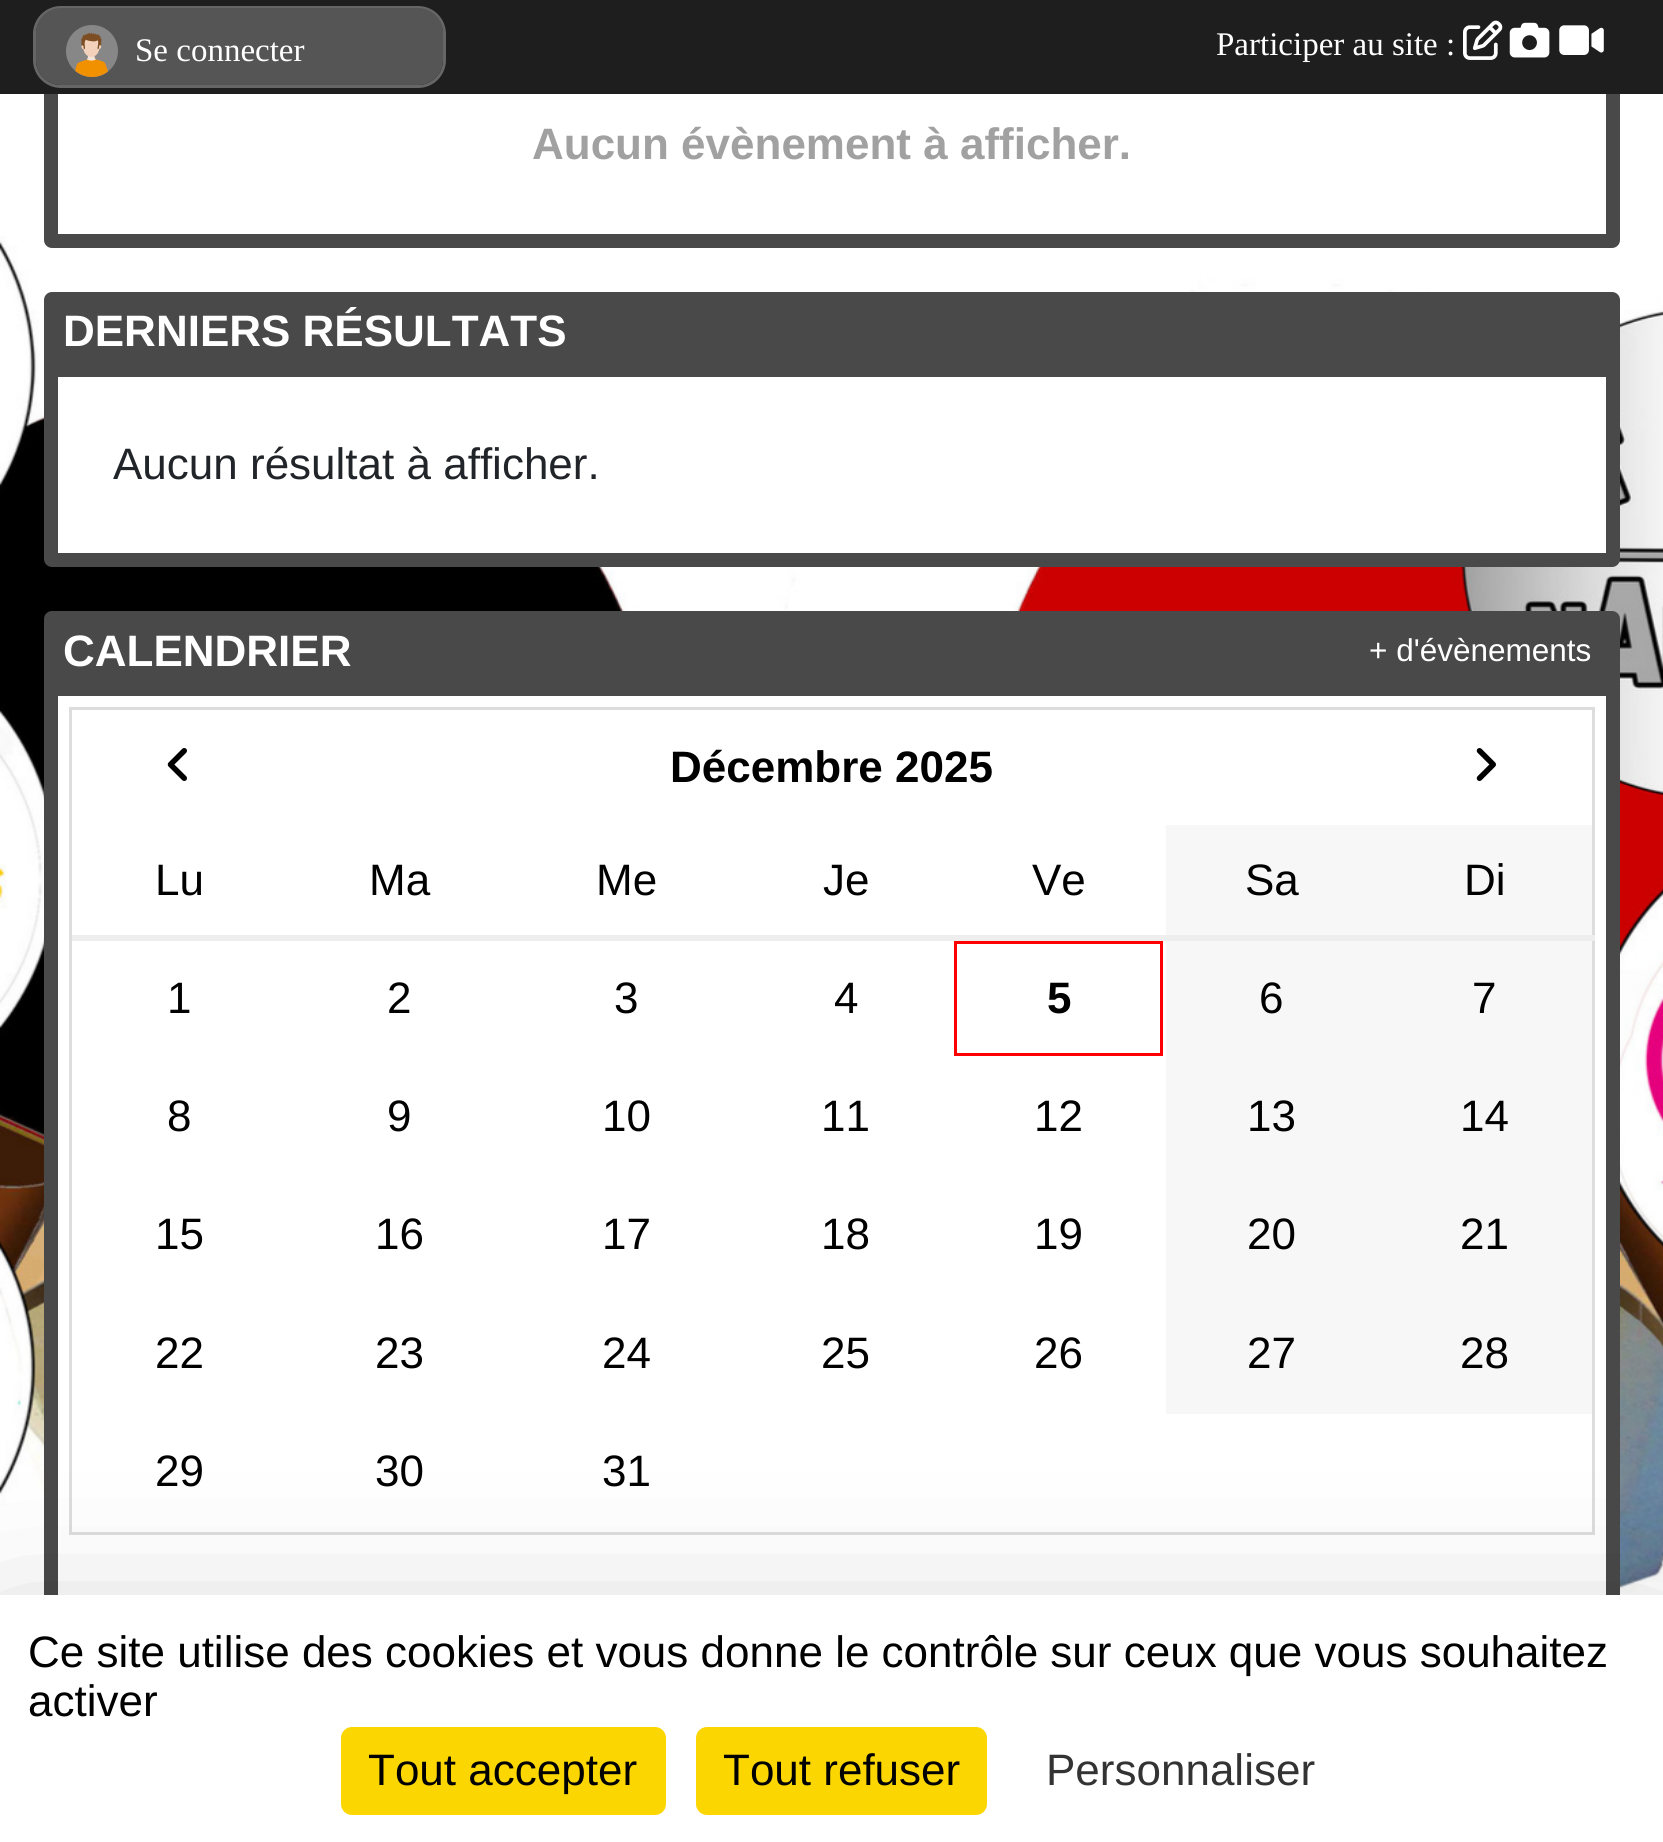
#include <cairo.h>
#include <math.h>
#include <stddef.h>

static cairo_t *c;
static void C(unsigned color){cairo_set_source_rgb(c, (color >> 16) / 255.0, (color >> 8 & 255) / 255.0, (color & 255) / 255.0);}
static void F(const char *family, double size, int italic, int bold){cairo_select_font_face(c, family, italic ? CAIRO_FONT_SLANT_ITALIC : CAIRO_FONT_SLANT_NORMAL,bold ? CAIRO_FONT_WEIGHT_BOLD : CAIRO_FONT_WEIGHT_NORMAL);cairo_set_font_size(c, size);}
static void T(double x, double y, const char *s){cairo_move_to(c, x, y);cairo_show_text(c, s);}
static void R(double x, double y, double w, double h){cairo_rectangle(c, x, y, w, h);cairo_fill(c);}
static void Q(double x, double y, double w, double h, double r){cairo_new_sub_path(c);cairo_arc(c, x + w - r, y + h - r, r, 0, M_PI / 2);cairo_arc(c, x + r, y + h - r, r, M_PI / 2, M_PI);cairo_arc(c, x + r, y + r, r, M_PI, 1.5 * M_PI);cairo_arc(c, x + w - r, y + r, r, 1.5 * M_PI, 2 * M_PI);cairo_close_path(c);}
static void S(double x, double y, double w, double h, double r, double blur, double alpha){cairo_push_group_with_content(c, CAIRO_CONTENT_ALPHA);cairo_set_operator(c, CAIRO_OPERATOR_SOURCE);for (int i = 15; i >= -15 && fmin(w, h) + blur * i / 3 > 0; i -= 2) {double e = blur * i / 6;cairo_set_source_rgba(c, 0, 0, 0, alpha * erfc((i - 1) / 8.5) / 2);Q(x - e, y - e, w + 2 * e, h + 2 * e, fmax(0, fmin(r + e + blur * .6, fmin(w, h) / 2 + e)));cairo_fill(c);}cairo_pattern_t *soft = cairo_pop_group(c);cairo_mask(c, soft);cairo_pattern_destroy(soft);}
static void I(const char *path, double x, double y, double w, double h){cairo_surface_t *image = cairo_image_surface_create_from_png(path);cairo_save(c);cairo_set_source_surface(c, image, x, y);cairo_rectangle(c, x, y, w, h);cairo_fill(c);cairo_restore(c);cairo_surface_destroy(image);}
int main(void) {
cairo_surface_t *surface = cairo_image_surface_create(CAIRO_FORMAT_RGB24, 1663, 1842);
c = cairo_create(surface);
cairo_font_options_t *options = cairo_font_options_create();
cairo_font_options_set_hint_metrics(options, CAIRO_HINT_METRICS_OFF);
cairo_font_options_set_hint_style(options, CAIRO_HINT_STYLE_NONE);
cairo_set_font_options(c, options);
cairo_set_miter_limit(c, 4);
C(0xffffff);
cairo_paint(c);
I("1.png",0,94,1663,1501);
C(0x494949);
Q(44,-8,1576,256,8);
cairo_fill(c);
C(0x1e1e1e);
R(0,0,1663,94);
Q(34.5,7.5,410,79,26.5);
C(0x666666);
cairo_set_line_width(c,3);
cairo_stroke(c);
C(0x555555);
Q(36,8,407,77,25);
cairo_fill(c);
I("2.png",66,25,52,52);
F("Liberation Serif",33,0,0);
C(0xffffff);
T(135,61,"Se connecter");
T(1216,55,"Participer au site :");
I("3.png",1463,20,40,40);
I("4.png",1509,22,41,36);
I("5.png",1559,25,45,30);
R(58,94,1548,140);
F("Liberation Sans",44,0,1);
C(0xa1a1a1);
T(532,159,"Aucun évènement à afficher.");
C(0x494949);
Q(44,292,1576,275,8);
cairo_fill(c);
C(0xffffff);
T(63,346,"DERNIERS RÉSULTATS");
R(58,377,1548,176);
F("Liberation Sans",44,0,0);
C(0x212529);
T(113,479,"Aucun résultat à afficher.");
C(0x494949);
Q(44,611,1576,1146,8);
cairo_fill(c);
F("Liberation Sans",44,0,1);
C(0xffffff);
T(63,666,"CALENDRIER");
R(58,696,1548,899);
cairo_rectangle(c,70.5,708.5,1523,825);
C(0xdddddd);
cairo_stroke(c);
C(0xeeeeee);
R(72,935,1523,6);
I("6.png",167,748,20,33);
C(0x000000);
T(670,782,"Décembre 2025");
I("7.png",1476,748,20,33);
F("Liberation Sans",44,0,0);
T(155,895,"Lu");
T(369,895,"Ma");
T(596,895,"Me");
T(823,895,"Je");
T(1032,895,"Ve");
C(0xf7f7f7);
R(1166,825,426,110);
C(0x000000);
T(1245,895,"Sa");
T(1464,895,"Di");
T(167,1013,"1");
T(387,1013,"2");
T(614,1013,"3");
T(834,1013,"4");
cairo_rectangle(c,955.5,942.5,206,112);
C(0xff0000);
cairo_stroke(c);
F("Liberation Sans",44,0,1);
C(0x000000);
T(1047,1013,"5");
C(0xf7f7f7);
R(1166,941,426,118);
F("Liberation Sans",44,0,0);
C(0x000000);
T(1259,1013,"6");
T(1472,1013,"7");
T(167,1131,"8");
T(387,1131,"9");
T(602,1131,"10");
T(821,1131,"11");
T(1034,1131,"12");
C(0xf7f7f7);
R(1166,1059,426,118);
C(0x000000);
T(1247,1131,"13");
T(1460,1131,"14");
T(155,1249,"15");
T(375,1249,"16");
T(602,1249,"17");
T(821,1249,"18");
T(1034,1249,"19");
C(0xf7f7f7);
R(1166,1177,426,118);
C(0x000000);
T(1247,1249,"20");
T(1460,1249,"21");
T(155,1368,"22");
T(375,1368,"23");
T(602,1368,"24");
T(821,1368,"25");
T(1034,1368,"26");
C(0xf7f7f7);
R(1166,1295,426,119);
C(0x000000);
T(1247,1368,"27");
T(1460,1368,"28");
T(155,1486,"29");
T(375,1486,"30");
T(602,1486,"31");
F("Liberation Sans",31.5,0,0);
C(0xffffff);
T(1369,661,"+ d'évènements");
C(0x000000);
S(0,1650,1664,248,0,82.5,.25);
C(0xffffff);
R(0,1595,1663,247);
F("Liberation Sans",44,0,0);
C(0x000000);
T(28,1667,"Ce site utilise des cookies et vous donne le contrôle sur ceux que vous souhaitez");
T(28,1716,"activer");
C(0xfbd600);
Q(341,1727,325,88,11);
cairo_fill(c);
C(0x000000);
T(368,1785,"Tout accepter");
C(0xfbd600);
Q(696,1727,291,88,11);
cairo_fill(c);
C(0x000000);
T(723,1785,"Tout refuser");
C(0x333333);
T(1046,1785,"Personnaliser");
cairo_surface_write_to_png(surface, "o.png");
cairo_font_options_destroy(options);
cairo_destroy(c);
cairo_surface_destroy(surface);
return 0;
}
